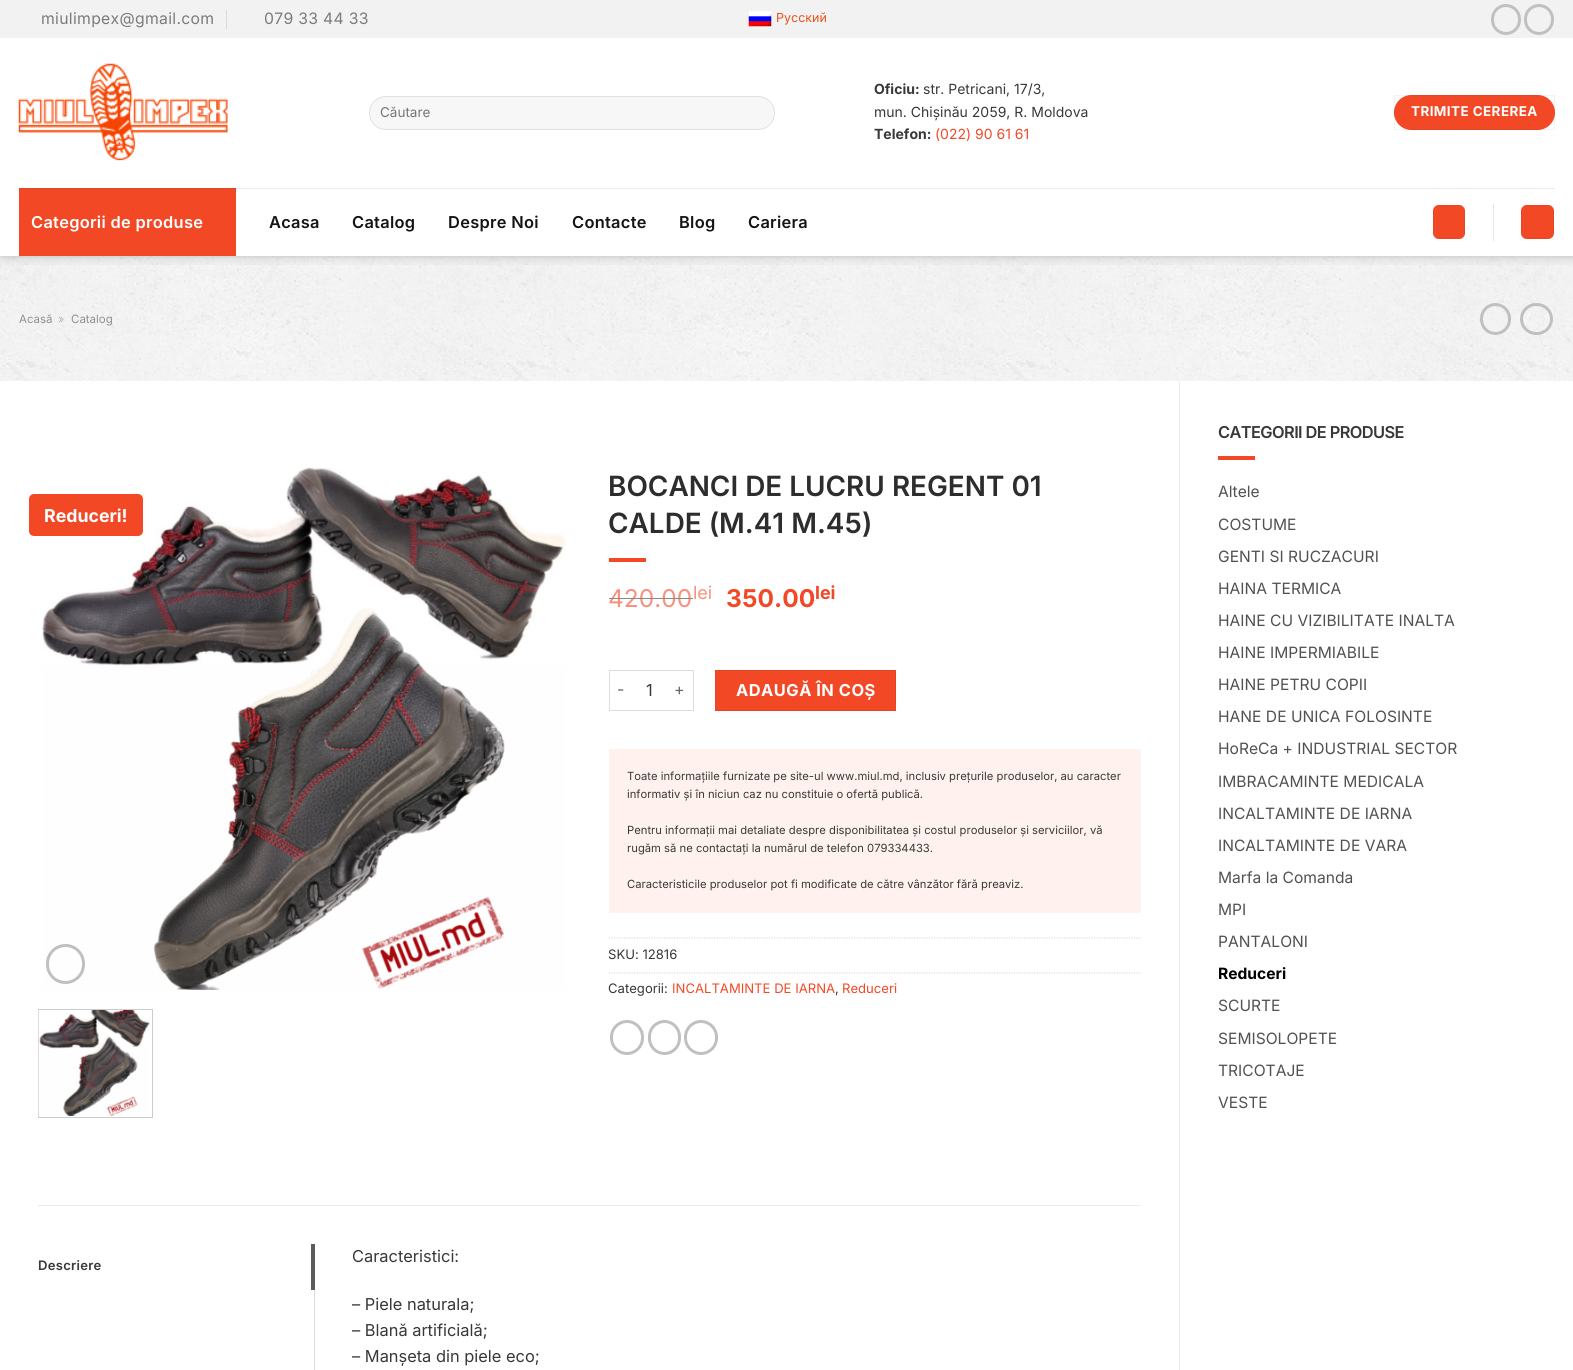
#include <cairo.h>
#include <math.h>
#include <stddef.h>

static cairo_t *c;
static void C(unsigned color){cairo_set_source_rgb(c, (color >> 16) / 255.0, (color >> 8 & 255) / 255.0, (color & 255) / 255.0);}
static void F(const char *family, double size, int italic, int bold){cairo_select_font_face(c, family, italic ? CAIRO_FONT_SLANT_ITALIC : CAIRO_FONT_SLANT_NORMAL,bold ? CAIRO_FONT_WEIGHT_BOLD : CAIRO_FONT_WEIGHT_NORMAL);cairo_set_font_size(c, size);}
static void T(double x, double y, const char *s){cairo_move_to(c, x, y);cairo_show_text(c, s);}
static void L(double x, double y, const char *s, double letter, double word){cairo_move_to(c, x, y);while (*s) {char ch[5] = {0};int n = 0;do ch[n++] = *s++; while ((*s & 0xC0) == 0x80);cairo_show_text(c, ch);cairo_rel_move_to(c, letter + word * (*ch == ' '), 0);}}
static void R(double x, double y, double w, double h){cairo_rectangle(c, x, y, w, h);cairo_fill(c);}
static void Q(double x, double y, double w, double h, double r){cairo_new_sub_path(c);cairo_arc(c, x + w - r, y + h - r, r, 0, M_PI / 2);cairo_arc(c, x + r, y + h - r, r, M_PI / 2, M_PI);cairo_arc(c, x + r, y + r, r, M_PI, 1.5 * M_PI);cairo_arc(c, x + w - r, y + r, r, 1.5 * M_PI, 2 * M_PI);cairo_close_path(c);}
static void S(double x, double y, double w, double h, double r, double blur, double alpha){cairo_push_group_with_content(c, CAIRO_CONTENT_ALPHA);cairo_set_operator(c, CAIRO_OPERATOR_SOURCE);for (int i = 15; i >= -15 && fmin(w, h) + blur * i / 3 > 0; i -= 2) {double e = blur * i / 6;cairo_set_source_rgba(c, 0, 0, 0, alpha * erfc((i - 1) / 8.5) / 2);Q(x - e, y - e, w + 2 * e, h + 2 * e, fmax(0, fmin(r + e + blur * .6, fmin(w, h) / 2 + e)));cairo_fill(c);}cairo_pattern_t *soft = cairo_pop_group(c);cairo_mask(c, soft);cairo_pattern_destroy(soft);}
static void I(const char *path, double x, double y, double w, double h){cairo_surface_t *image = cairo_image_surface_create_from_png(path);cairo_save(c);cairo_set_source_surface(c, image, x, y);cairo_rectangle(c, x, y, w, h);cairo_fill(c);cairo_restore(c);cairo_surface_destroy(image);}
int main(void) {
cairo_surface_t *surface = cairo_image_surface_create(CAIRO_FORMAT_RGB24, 1573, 1370);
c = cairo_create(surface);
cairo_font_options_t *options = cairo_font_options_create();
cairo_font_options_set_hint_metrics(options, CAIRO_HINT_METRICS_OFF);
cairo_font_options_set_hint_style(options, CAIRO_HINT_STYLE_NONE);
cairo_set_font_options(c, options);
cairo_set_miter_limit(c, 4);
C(0xffffff);
cairo_paint(c);
C(0xebebeb);
R(236,188,1319,1);
I("3.png",0,256,1573,125);
cairo_save(c);
cairo_rectangle(c,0,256,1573,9);
cairo_clip(c);
C(0x000000);
S(1,1,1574,257,0,6,.15);
cairo_restore(c);
C(0xf2f2f2);
R(0,0,1573,38);
F("Inter",15.75,0,0);
C(0x7b7b7b);
L(41,24,"miulimpex@gmail.com",.3,0);
C(0xdadada);
R(226,10,1,19);
C(0x7b7b7b);
L(264,24,"079 33 44 33",.3,0);
I("1.png",748,11,24,16);
F("Inter",12.5,0,0);
C(0xe8521b);
T(776,22,"Русский");
Q(1492.5,5.5,27,28,13.5);
C(0xc0c0c0);
cairo_set_line_width(c,3);
cairo_stroke(c);
Q(1525.5,5.5,27,28,13.5);
cairo_stroke(c);
I("2.png",18,63,210,98);
C(0xf7f7f7);
Q(369,96,406,34,17);
cairo_fill(c);
Q(369.5,96.5,405,33,16.5);
cairo_set_source_rgba(c,0,0,0,0.09);
cairo_set_line_width(c,1);
cairo_stroke(c);
F("Inter",13.5,0,0);
C(0x757575);
T(380,117,"Căutare");
F("Inter",14,0,1);
C(0x383838);
T(874,94,"Oficiu:");
F("Inter",14,0,0);
T(923,94,"str. Petricani, 17/3,");
T(874,117,"mun. Chișinău 2059, R. Moldova");
F("Inter",14,0,1);
T(874,139,"Telefon:");
F("Inter",14,0,0);
C(0xf24826);
T(935,139,"(022) 90 61 61");
Q(1394,95,161,35,17.5);
cairo_fill(c);
cairo_rectangle(c,1394.5,95.5,160,34);
cairo_set_source_rgba(c,0,0,0,0.05);
cairo_stroke(c);
F("Inter",13.5,0,1);
C(0xffffff);
L(1411,116,"TRIMITE CEREREA",.4,0);
C(0xf24826);
R(19,189,217,67);
C(0xdf4628);
R(19,188,217,1);
F("Inter SemiBold",16.4,0,0);
C(0xffffff);
L(31,228,"Categorii de produse",.3,0);
C(0x141414);
L(269,228,"Acasa",.3,0);
L(352,228,"Catalog",.3,0);
L(448,228,"Despre Noi",.3,0);
L(572,228,"Contacte",.3,0);
L(679,228,"Blog",.3,0);
L(748,228,"Cariera",.3,0);
C(0xf24826);
Q(1433,205,32,34,6);
cairo_fill(c);
cairo_rectangle(c,1433.5,205.5,31,33);
cairo_set_source_rgba(c,0,0,0,0.05);
cairo_stroke(c);
C(0xe6e6e6);
R(1493,204,1,37);
C(0xf24826);
Q(1521,205,33,34,6);
cairo_fill(c);
cairo_rectangle(c,1521.5,205.5,32,33);
cairo_set_source_rgba(c,0,0,0,0.05);
cairo_stroke(c);
F("Inter",11.5,0,0);
C(0x909090);
T(19,323,"Acasă");
F("Inter Light",11.5,0,0);
C(0xa9a9a9);
T(58,323,"»");
F("Inter",11.5,0,0);
C(0x909090);
T(71,323,"Catalog");
Q(1481.5,304.5,28,29,14);
C(0xc0c0c0);
cairo_set_line_width(c,3);
cairo_stroke(c);
Q(1521.5,304.5,30,29,14.5);
cairo_stroke(c);
C(0xececec);
R(1179,381,1,989);
I("4.png",42,467,524,523);
C(0xf24826);
Q(29,494,114,42,5);
cairo_fill(c);
F("Inter",17.75,0,1);
C(0xffffff);
T(44,522,"Reduceri!");
Q(47.5,945.5,36,37,18);
C(0xc0c0c0);
cairo_stroke(c);
cairo_rectangle(c,38.5,1009.5,114,108);
C(0xcccccc);
cairo_set_line_width(c,1);
cairo_stroke(c);
I("5.png",38,1010,112,106);
F("Inter SemiBold",27.9,0,0);
C(0x2d2d2d);
T(608,496,"BOCANCI DE LUCRU REGENT 01");
T(608,533,"CALDE (M.41 M.45)");
C(0xf24826);
R(609,558,37,4);
F("Inter",24.5,0,0);
C(0xf7917d);
T(608,607,"420.00");
C(0x888888);
R(609,598,84,1);
F("Inter",18,0,0);
C(0xf7917d);
T(693,599,"lei");
F("Inter",24.5,0,1);
C(0xf24826);
T(726,607,"350.00");
F("Inter",18,0,1);
T(815,599,"lei");
C(0xdddddd);
R(609,670,85,1);
R(609,710,57,1);
R(609,670,1,41);
F("Inter",16,0,0);
C(0x666666);
T(617,695,"-");
F("Inter",16.4,0,0);
C(0x383838);
T(646,696,"1");
C(0xdddddd);
R(693,670,1,41);
R(666,710,28,1);
F("Inter",16,0,0);
C(0x666666);
T(674,695,"+");
C(0xf24826);
cairo_rectangle(c,715.5,670.5,180,40);
cairo_fill_preserve(c);
C(0xe64424);
cairo_stroke(c);
F("Inter",16.4,0,1);
C(0xffffff);
L(736,696,"ADAUGĂ ÎN COȘ",.5,0);
C(0xfff1ed);
R(609,749,532,164);
F("Inter",11.25,0,0);
C(0x383838);
T(627,780,"Toate informațiile furnizate pe site-ul www.miul.md, inclusiv prețurile produselor, au caracter");
T(627,798,"informativ și în niciun caz nu constituie o ofertă publică.");
T(627,834,"Pentru informații mai detaliate despre disponibilitatea și costul produselor și serviciilor, vă");
T(627,852,"rugăm să ne contactați la numărul de telefon 079334433.");
T(627,888,"Caracteristicile produselor pot fi modificate de către vânzător fără preaviz.");
cairo_new_path(c);
cairo_move_to(c,609,938);
cairo_line_to(c,1141,938);
C(0xdddddd);
cairo_set_line_width(c,1.2);
cairo_set_dash(c,(double[]){1.25,1.25},2,0);
cairo_stroke(c);
F("Inter",13.1,0,0);
C(0x383838);
T(608,959,"SKU: 12816");
cairo_new_path(c);
cairo_move_to(c,609,973);
cairo_line_to(c,1141,973);
C(0xdddddd);
cairo_stroke(c);
C(0x383838);
T(608,993,"Categorii:");
C(0xf24826);
T(672,993,"INCALTAMINTE DE IARNA");
C(0x383838);
T(835,993,",");
C(0xf24826);
T(842,993,"Reduceri");
Q(611.5,1021.5,31,32,15.5);
C(0xc0c0c0);
cairo_set_line_width(c,3);
cairo_set_dash(c,NULL,0,0);
cairo_stroke(c);
Q(649.5,1021.5,30,32,15);
cairo_stroke(c);
Q(685.5,1021.5,31,32,15.5);
cairo_stroke(c);
C(0xececec);
R(38,1205,1103,1);
F("Inter SemiBold",13.1,0,0);
C(0x383838);
L(38,1270,"Descriere",.25,0);
C(0x5b5b5b);
R(311,1244,4,46);
C(0xdddddd);
R(314,1290,1,80);
F("Inter",16.4,0,0);
C(0x383838);
T(352,1262,"Caracteristici:");
T(352,1310,"– Piele naturala;");
T(352,1336,"– Blană artificială;");
T(352,1362,"– Manșeta din piele eco;");
F("Inter SemiBold",16.4,0,0);
L(1218,438,"CATEGORII DE PRODUSE",-.6,0);
C(0xf24826);
R(1218,456,37,4);
F("Inter",15.6,0,0);
C(0x515151);
T(1218,497,"Altele");
T(1218,530,"COSTUME");
T(1218,562,"GENTI SI RUCZACURI");
T(1218,594,"HAINA TERMICA");
T(1218,626,"HAINE CU VIZIBILITATE INALTA");
T(1218,658,"HAINE IMPERMIABILE");
T(1218,690,"HAINE PETRU COPII");
T(1218,722,"HANE DE UNICA FOLOSINTE");
T(1218,754,"HoReCa + INDUSTRIAL SECTOR");
T(1218,787,"IMBRACAMINTE MEDICALA");
T(1218,819,"INCALTAMINTE DE IARNA");
T(1218,851,"INCALTAMINTE DE VARA");
T(1218,883,"Marfa la Comanda");
T(1218,915,"MPI");
T(1218,947,"PANTALONI");
F("Inter",15.6,0,1);
C(0x000000);
T(1218,979,"Reduceri");
F("Inter",15.6,0,0);
C(0x515151);
T(1218,1011,"SCURTE");
T(1218,1044,"SEMISOLOPETE");
T(1218,1076,"TRICOTAJE");
T(1218,1108,"VESTE");
cairo_surface_write_to_png(surface, "o.png");
cairo_font_options_destroy(options);
cairo_destroy(c);
cairo_surface_destroy(surface);
return 0;
}
